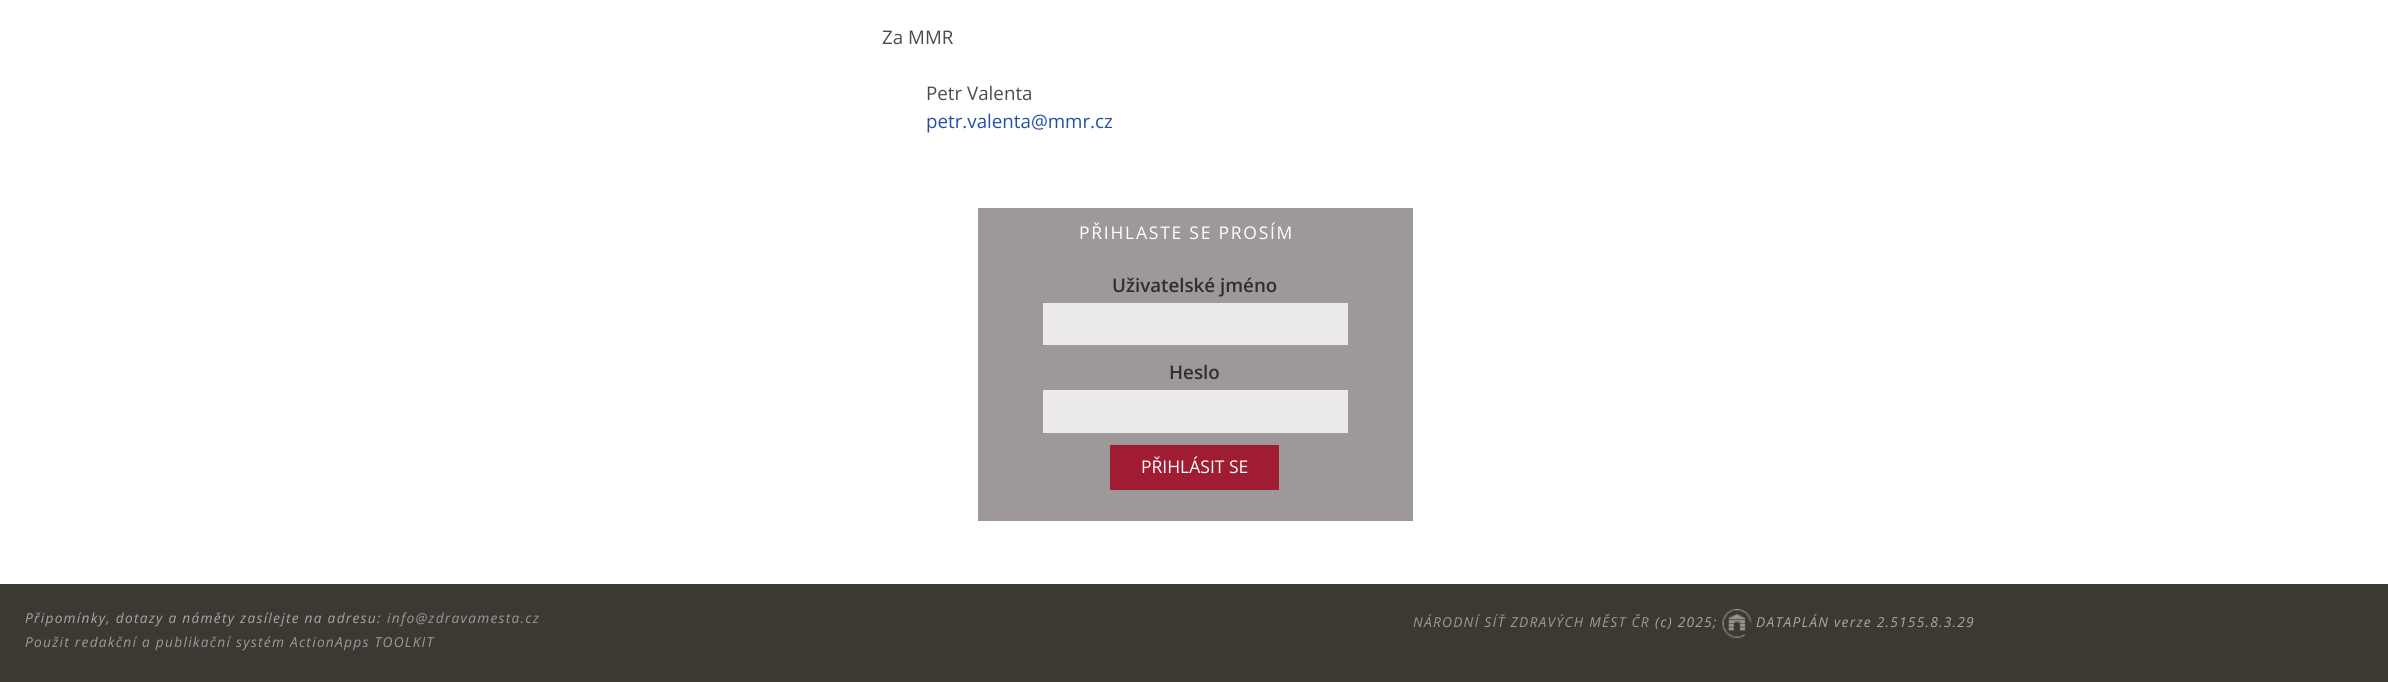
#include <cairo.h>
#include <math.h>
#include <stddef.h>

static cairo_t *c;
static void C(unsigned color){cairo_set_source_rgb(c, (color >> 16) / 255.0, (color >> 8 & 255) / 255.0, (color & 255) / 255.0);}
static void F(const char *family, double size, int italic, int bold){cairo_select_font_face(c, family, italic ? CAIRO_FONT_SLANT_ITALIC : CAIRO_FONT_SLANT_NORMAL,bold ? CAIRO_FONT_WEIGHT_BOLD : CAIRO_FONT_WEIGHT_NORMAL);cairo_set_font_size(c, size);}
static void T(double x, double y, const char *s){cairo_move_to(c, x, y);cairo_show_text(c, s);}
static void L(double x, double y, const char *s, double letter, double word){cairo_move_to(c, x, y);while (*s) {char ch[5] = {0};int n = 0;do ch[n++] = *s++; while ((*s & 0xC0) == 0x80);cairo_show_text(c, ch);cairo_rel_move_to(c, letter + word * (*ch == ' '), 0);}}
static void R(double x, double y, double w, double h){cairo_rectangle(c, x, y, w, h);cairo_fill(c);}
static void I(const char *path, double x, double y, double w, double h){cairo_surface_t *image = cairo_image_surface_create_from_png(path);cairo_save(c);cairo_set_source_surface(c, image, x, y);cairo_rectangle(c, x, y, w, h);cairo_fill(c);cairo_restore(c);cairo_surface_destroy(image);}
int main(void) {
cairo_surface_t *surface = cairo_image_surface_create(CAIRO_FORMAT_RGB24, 2388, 682);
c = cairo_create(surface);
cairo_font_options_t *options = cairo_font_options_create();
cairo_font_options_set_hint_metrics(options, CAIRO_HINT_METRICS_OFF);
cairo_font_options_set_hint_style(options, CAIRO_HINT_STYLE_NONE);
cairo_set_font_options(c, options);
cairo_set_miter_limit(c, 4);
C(0xffffff);
cairo_paint(c);
F("Open Sans",18.75,0,0);
C(0x4c4c4c);
T(882,44,"Za MMR");
T(926,100,"Petr Valenta");
C(0x244fa5);
T(926,128,"petr.valenta@mmr.cz");
C(0x9e9998);
R(978,208,435,313);
F("Open Sans",17.5,0,0);
C(0xffffff);
L(1079,239,"PŘIHLASTE SE PROSÍM",1.75,0);
F("Open Sans SemiBold",18.75,0,0);
C(0x2f2e2e);
T(1112,292,"Uživatelské jméno");
C(0xecebea);
R(1043,303,305,42);
C(0x2f2e2e);
T(1169,379,"Heslo");
C(0xecebea);
R(1043,390,305,43);
C(0x9f1c32);
R(1110,445,169,45);
F("Open Sans",17.5,0,0);
C(0xffffff);
T(1141,473,"PŘIHLÁSIT SE");
C(0x3c3933);
R(0,584,2388,98);
F("Open Sans",13.75,1,0);
C(0xa7a7a7);
L(25,623,"Připomínky, dotazy a náměty zasílejte na adresu:",1.25,0);
C(0x999999);
L(387,623,"info@zdravamesta.cz",1.25,0);
L(25,647,"Použit redakční a publikační systém ActionApps TOOLKIT",1.25,0);
L(1413,627,"NÁRODNÍ SÍŤ ZDRAVÝCH MĚST ČR",1.25,0);
C(0xa7a7a7);
L(1655,627,"(c) 2025;",1.25,0);
I("1.png",1722,609,30,29);
L(1756,627,"DATAPLÁN verze 2.5155.8.3.29",1.25,0);
cairo_surface_write_to_png(surface, "o.png");
cairo_font_options_destroy(options);
cairo_destroy(c);
cairo_surface_destroy(surface);
return 0;
}
